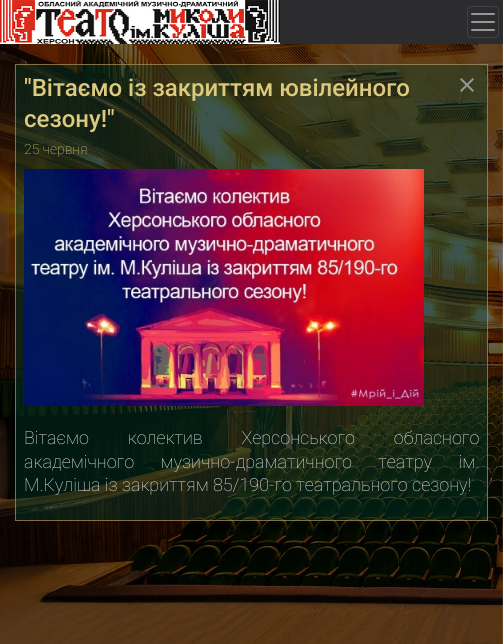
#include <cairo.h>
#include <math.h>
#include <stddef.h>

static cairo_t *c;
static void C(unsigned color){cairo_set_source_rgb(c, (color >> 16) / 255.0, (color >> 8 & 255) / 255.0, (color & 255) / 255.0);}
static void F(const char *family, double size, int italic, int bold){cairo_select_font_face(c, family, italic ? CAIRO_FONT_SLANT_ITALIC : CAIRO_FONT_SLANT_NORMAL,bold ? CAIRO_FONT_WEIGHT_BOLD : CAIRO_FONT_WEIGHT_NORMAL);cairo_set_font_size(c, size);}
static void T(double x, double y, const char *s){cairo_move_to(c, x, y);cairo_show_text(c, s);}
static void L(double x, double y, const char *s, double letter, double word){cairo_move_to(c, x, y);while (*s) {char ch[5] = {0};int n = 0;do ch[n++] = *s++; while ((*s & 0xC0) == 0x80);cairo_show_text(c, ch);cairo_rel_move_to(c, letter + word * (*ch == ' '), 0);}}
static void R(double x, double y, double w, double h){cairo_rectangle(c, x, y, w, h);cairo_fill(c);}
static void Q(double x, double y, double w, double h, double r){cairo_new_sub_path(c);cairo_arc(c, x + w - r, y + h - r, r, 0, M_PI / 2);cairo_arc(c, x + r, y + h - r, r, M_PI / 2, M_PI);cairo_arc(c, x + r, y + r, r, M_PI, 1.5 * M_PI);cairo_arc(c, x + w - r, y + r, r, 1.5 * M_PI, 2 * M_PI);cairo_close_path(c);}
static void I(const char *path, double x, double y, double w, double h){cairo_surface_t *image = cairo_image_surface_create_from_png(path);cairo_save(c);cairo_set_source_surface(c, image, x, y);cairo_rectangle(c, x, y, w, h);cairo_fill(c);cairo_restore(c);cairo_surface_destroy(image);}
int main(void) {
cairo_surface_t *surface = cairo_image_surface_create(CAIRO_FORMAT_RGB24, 503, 644);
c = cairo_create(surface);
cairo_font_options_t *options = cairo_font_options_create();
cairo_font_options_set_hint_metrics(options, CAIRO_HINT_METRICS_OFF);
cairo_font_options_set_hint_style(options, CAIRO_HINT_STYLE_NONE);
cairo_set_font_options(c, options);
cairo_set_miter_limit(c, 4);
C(0xffffff);
cairo_paint(c);
C(0x2c2c2f);
R(280,0,223,44);
I("1.png",0,0,280,44);
Q(467.5,6.5,31,31,3.5);
C(0x414144);
cairo_set_line_width(c,1);
cairo_stroke(c);
I("2.png",471,13,24,18);
I("3.png",0,44,503,600);
cairo_set_source_rgba(c,0.004,0.251,0.18,0.38);
R(15,64,473,457);
cairo_rectangle(c,15.5,64.5,472,456);
cairo_set_source_rgba(c,0.706,0.576,0.373,0.7);
cairo_stroke(c);
F("Roboto Medium",24,0,0);
C(0xddca7e);
T(24,96,"\"Вітаємо із закриттям ювілейного");
T(24,127,"сезону!\"");
I("4.png",460,78,14,14);
F("Roboto Thin",14,0,0);
T(24,154,"25 червня");
I("5.png",24,169,400,237);
F("Roboto Thin",18,0,0);
C(0xebebeb);
L(24,444,"Вітаємо колектив Херсонського обласного",0,34.5);
L(24,468,"академічного музично-драматичного театру ім.",0,22);
T(24,491,"М.Куліша із закриттям 85/190-го театрального сезону!");
cairo_surface_write_to_png(surface, "o.png");
cairo_font_options_destroy(options);
cairo_destroy(c);
cairo_surface_destroy(surface);
return 0;
}
